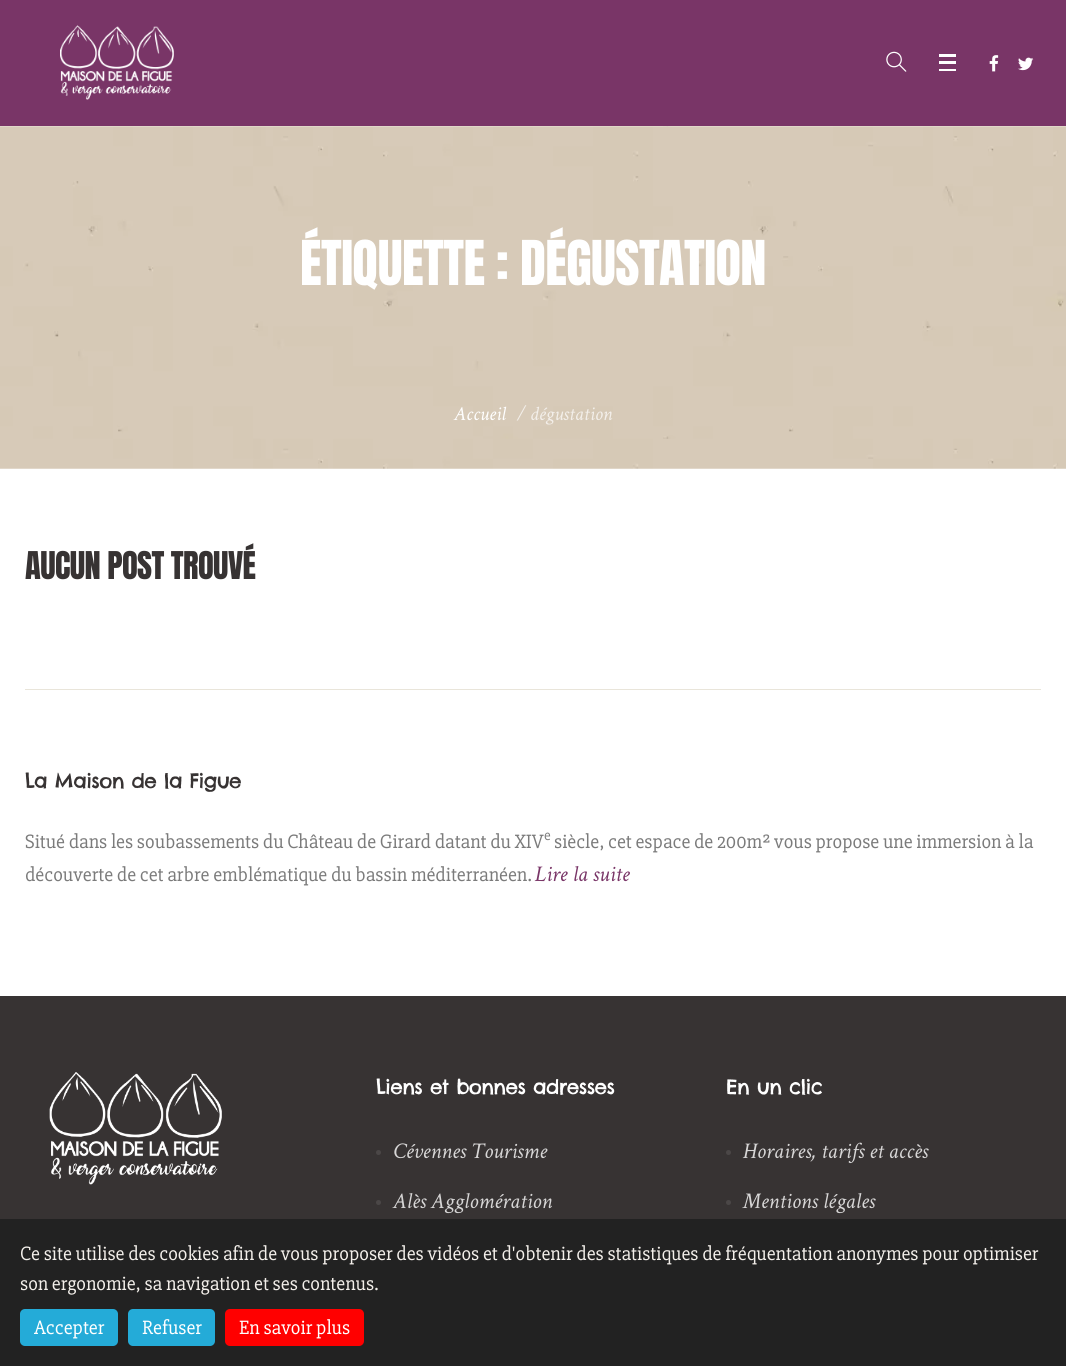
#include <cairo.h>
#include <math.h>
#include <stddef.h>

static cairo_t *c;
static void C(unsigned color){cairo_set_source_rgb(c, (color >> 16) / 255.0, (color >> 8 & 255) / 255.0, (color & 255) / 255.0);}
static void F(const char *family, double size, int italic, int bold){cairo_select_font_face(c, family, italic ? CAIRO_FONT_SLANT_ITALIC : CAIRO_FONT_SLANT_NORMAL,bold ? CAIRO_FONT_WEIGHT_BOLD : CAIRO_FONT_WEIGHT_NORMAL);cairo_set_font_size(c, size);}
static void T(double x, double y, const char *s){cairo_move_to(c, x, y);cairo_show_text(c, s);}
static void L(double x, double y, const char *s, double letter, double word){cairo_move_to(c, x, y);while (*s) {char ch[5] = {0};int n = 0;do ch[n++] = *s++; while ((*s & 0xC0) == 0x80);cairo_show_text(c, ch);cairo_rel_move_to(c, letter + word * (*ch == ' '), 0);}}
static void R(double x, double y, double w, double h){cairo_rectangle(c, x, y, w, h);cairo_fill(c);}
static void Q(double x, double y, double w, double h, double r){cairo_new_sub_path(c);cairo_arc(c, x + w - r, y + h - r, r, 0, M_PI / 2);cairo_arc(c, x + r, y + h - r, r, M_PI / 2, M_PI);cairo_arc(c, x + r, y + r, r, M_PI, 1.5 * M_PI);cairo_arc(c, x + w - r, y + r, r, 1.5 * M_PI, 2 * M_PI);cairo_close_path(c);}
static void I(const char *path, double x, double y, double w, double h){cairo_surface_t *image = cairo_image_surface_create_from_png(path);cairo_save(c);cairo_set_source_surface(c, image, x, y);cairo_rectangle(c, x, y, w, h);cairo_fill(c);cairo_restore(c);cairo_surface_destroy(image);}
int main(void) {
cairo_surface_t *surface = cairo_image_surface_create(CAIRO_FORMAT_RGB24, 1066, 1366);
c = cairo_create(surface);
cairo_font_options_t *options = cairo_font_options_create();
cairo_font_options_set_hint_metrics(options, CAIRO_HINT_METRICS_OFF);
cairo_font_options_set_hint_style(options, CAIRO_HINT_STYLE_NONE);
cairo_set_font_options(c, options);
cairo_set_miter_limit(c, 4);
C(0xffffff);
cairo_paint(c);
C(0x793567);
R(0,0,1066,126);
I("1.png",60,25,114,75);
I("2.png",886,51,21,21);
C(0xffffff);
R(939,54,17,3);
R(939,61,17,3);
R(939,69,17,2);
I("3.png",989,55,10,17);
I("4.png",1018,57,16,14);
I("5.png",0,126,1066,343);
F("Anton",52.5,0,0);
L(300,285,"ÉTIQUETTE : DÉGUSTATION",-.6,0);
F("Crimson Text",20,1,0);
T(454,420,"Accueil");
C(0xf3efea);
T(517,420,"/");
T(530,420,"dégustation");
F("Anton",32.5,0,0);
C(0x373333);
L(25,579,"AUCUN POST TROUVÉ",-.6,0);
C(0xe9e5da);
R(25,689,1016,1);
F("Chelsea Market",20,0,0);
C(0x373333);
L(25,788,"La Maison de la Figue",-.6,0);
F("Slabo 27px",20,0,0);
C(0x7b7b7b);
T(25,848,"Situé dans les soubassements du Château de Girard datant du XIV");
F("Slabo 27px",15,0,0);
T(544,840,"e");
F("Slabo 27px",20,0,0);
T(554,848,"siècle, cet espace de 200m² vous propose une immersion à la");
T(25,881,"découverte de cet arbre emblématique du bassin méditerranéen.");
F("Crimson Text",22.5,1,0);
C(0x793567);
T(535,881,"Lire la suite");
C(0x373333);
R(0,996,1066,223);
I("6.png",49,1072,173,113);
F("Chelsea Market",20,0,0);
C(0xffffff);
L(376,1094,"Liens et bonnes adresses",-.6,0);
C(0x4b4747);
cairo_new_path(c);
cairo_arc(c,378.5,1152.5,2.5,0,2 * M_PI);
cairo_fill(c);
F("Crimson Text",22.5,1,0);
C(0xd7d6d6);
T(393,1158,"Cévennes Tourisme");
C(0x4b4747);
cairo_new_path(c);
cairo_arc(c,378.5,1202.5,2.5,0,2 * M_PI);
cairo_fill(c);
C(0xd7d6d6);
T(393,1208,"Alès Agglomération");
F("Chelsea Market",20,0,0);
C(0xffffff);
L(726,1094,"En un clic",-.6,0);
C(0x4b4747);
cairo_new_path(c);
cairo_arc(c,728.5,1152.5,2.5,0,2 * M_PI);
cairo_fill(c);
F("Crimson Text",22.5,1,0);
C(0xd7d6d6);
T(743,1158,"Horaires, tarifs et accès");
C(0x4b4747);
cairo_new_path(c);
cairo_arc(c,728.5,1202.5,2.5,0,2 * M_PI);
cairo_fill(c);
C(0xd7d6d6);
T(743,1208,"Mentions légales");
C(0x222222);
R(0,1219,1066,147);
F("Slabo 27px",20,0,0);
C(0xf3efea);
T(20,1260,"Ce site utilise des cookies afin de vous proposer des vidéos et d'obtenir des statistiques de fréquentation anonymes pour optimiser");
T(20,1290,"son ergonomie, sa navigation et ses contenus.");
C(0x24abd8);
Q(20,1309,98,37,5);
cairo_fill(c);
C(0xffffff);
T(34,1334,"Accepter");
C(0x24abd8);
Q(128,1309,87,37,5);
cairo_fill(c);
C(0xffffff);
T(142,1334,"Refuser");
C(0xff0000);
Q(225,1309,139,37,5);
cairo_fill(c);
C(0xffffff);
T(239,1334,"En savoir plus");
cairo_surface_write_to_png(surface, "o.png");
cairo_font_options_destroy(options);
cairo_destroy(c);
cairo_surface_destroy(surface);
return 0;
}
